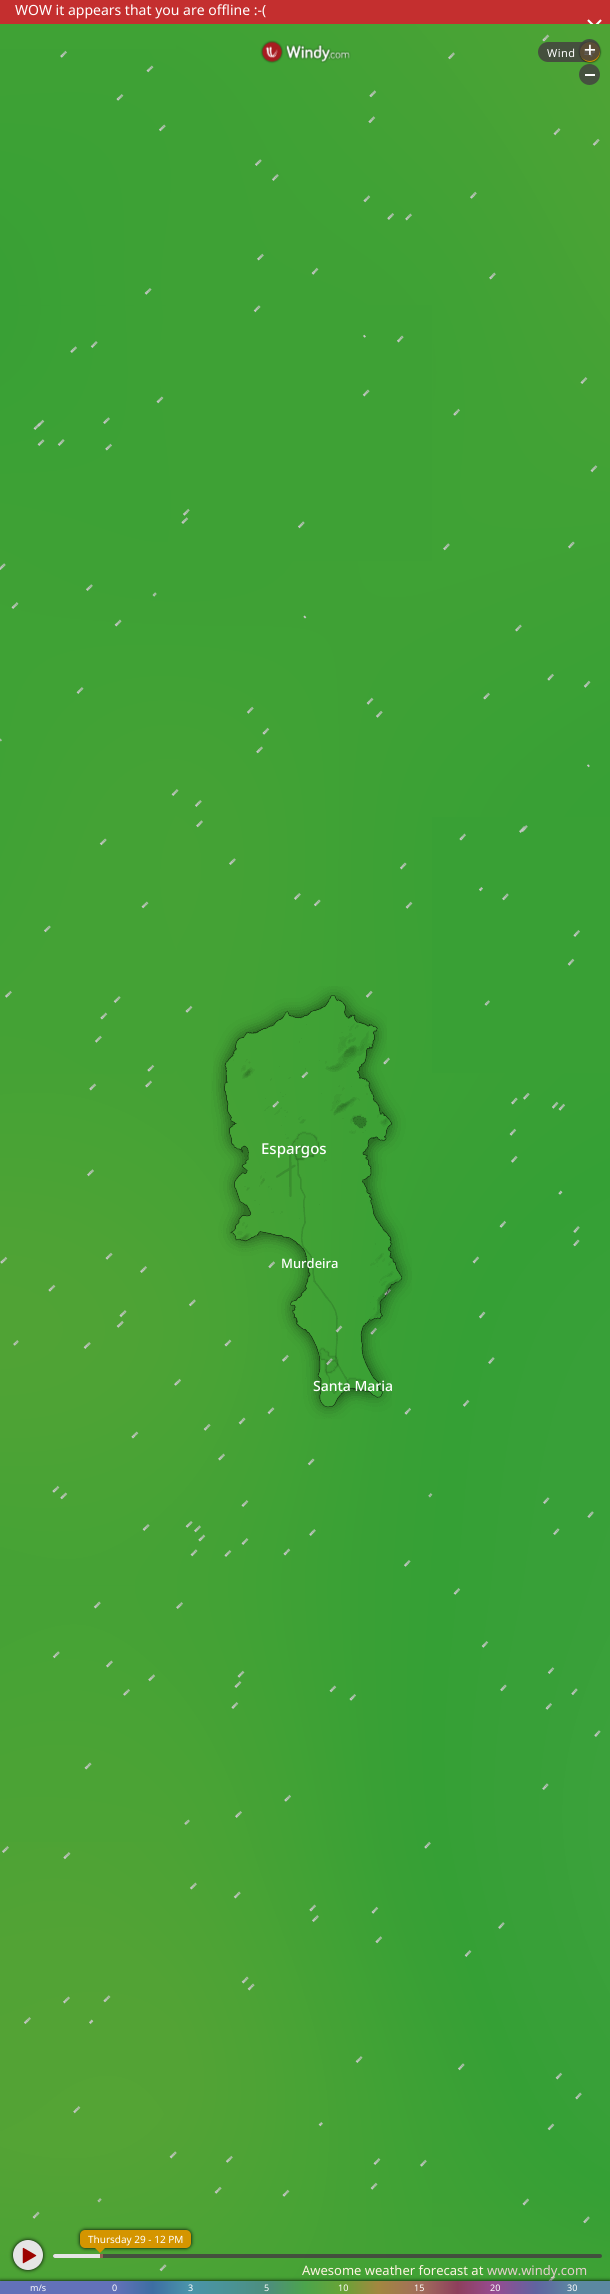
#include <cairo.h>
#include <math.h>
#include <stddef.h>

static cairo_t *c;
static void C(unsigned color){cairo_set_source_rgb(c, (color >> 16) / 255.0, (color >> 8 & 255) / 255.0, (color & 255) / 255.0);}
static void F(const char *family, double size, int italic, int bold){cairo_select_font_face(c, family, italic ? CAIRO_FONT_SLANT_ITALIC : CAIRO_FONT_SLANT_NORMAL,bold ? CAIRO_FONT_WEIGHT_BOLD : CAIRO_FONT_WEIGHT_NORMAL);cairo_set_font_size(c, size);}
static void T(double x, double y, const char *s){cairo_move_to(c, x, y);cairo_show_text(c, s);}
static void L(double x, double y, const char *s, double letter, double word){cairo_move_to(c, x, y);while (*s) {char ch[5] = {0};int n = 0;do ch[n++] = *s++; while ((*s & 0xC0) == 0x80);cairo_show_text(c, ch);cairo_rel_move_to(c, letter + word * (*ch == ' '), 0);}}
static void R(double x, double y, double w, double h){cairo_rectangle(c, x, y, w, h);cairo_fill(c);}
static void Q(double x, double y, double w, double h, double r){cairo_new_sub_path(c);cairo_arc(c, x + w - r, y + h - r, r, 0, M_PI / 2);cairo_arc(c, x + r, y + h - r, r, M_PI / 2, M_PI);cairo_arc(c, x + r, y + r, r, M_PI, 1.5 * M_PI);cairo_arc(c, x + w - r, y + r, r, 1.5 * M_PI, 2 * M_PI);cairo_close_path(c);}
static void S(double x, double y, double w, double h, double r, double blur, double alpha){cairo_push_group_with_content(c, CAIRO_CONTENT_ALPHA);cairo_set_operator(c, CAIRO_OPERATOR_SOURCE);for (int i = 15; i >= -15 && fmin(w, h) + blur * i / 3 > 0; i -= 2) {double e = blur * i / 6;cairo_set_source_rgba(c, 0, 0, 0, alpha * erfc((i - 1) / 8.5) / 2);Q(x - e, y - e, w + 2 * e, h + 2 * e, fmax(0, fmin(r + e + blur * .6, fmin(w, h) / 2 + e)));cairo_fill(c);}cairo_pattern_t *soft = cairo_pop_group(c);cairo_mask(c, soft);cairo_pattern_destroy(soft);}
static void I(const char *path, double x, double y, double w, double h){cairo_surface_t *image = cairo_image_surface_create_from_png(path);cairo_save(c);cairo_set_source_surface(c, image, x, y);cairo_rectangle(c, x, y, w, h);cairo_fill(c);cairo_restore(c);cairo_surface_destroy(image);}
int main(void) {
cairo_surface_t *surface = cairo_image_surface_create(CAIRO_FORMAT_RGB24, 610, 2294);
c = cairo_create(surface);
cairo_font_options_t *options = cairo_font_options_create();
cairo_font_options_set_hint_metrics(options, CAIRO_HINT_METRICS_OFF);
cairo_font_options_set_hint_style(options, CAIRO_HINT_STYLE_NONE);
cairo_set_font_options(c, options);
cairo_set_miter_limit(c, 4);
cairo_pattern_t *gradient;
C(0xffffff);
cairo_paint(c);
C(0xc42f2f);
R(0,0,610,24);
F("Noto Sans",14,0,0);
C(0xffffff);
T(15,15,"WOW it appears that you are offline :-(");
I("1.png",587,19,15,5);
I("6.png",176,24,256,25);
I("9.png",176,49,256,256);
C(0x3fa235);
R(0,24,176,25);
I("7.png",432,24,178,25);
I("8.png",0,49,176,256);
I("10.png",432,49,178,256);
I("11.png",0,305,176,256);
C(0x3ea135);
R(176,305,256,256);
I("12.png",432,305,178,256);
I("13.png",0,561,176,256);
I("14.png",176,561,256,256);
I("15.png",432,561,178,256);
I("16.png",0,817,176,256);
I("17.png",176,817,256,256);
C(0x39a035);
R(432,817,178,256);
I("18.png",0,1073,176,256);
I("19.png",176,1073,256,256);
I("20.png",432,1073,178,256);
I("21.png",0,1329,176,256);
I("22.png",176,1329,256,256);
I("23.png",432,1329,178,256);
I("24.png",0,1585,176,256);
I("25.png",176,1585,256,256);
I("26.png",432,1585,178,256);
I("27.png",0,1841,176,256);
I("28.png",176,1841,256,256);
I("29.png",432,1841,178,256);
I("30.png",0,2097,176,184);
I("31.png",176,2097,256,184);
I("32.png",432,2097,178,184);
I("33.png",0,34,601,2247);
I("2.png",260,40,24,24);
I("3.png",285,44,66,19);
cairo_set_source_rgba(c,0.267,0.255,0.255,0.84);
Q(538,42,62,20,10);
cairo_fill(c);
F("Noto Sans",11,0,0);
C(0xffffff);
L(547,57,"Wind",.5,0);
C(0x000000);
S(580,42,20,20,10,1,1);
C(0xd49500);
cairo_arc(c,590,52,10,0,2 * M_PI);
cairo_fill(c);
I("4.png",584,50,11,7);
cairo_set_source_rgba(c,0.267,0.255,0.255,0.84);
Q(579,39,21,22,10.5);
cairo_fill(c);
I("5.png",584,44,12,11);
C(0x45513f);
cairo_arc(c,589.5,74.5,10.5,0,2 * M_PI);
cairo_fill(c);
C(0xffffff);
R(585,74,10,2);
I("34.png",213,986,174,87);
I("35.png",211,1073,201,256);
I("36.png",287,1329,105,90);
F("Noto Sans Medium",15,0,0);
T(261,1154,"Espargos");
F("Noto Sans Medium",13,0,0);
T(281,1268,"Murdeira");
F("Noto Sans Medium",14,0,0);
T(313,1391,"Santa Maria");
C(0x000000);
S(13,2240,30,30,15,2,1);
C(0xe5e5e5);
cairo_arc(c,28,2255,15,0,2 * M_PI);
cairo_fill(c);
I("37.png",22,2247,15,17);
C(0x000000);
S(80,2230,111,18,5,2,1);
C(0xd49500);
Q(80,2230,111,18,5);
cairo_fill(c);
F("Noto Sans",10,0,0);
C(0xffffff);
T(88,2243,"Thursday 29 - 12 PM");
C(0xd49500);
cairo_new_path(c);
cairo_move_to(c,95,2248);
cairo_line_to(c,105,2248);
cairo_line_to(c,100,2253);
cairo_close_path(c);
cairo_fill(c);
cairo_set_source_rgba(c,0.267,0.255,0.255,0.84);
Q(53,2254,549,4,2);
cairo_fill(c);
C(0xe5e5e5);
cairo_new_path(c);
cairo_move_to(c,55,2254);
cairo_line_to(c,100,2254);
cairo_line_to(c,100,2258);
cairo_line_to(c,55,2258);
cairo_curve_to(c,54,2258,53,2257,53,2256);
cairo_curve_to(c,53,2255,54,2254,55,2254);
cairo_close_path(c);
cairo_fill(c);
C(0x946051);
R(100,2254,3,4);
C(0x000000);
S(0,2281,610,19,0,2,1);
F("Noto Sans",13,0,0);
C(0xfff3e1);
T(302,2275,"Awesome weather forecast at");
C(0xe6cece);
T(487,2275,"www.windy.com");
gradient = cairo_pattern_create_linear(0,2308,610,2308);
cairo_pattern_add_color_stop_rgba(gradient,0,0.384,0.443,0.722,1);
cairo_pattern_add_color_stop_rgba(gradient,.19,0.384,0.443,0.722,1);
cairo_pattern_add_color_stop_rgba(gradient,.25,0.239,0.431,0.639,1);
cairo_pattern_add_color_stop_rgba(gradient,.31,0.29,0.58,0.667,1);
cairo_pattern_add_color_stop_rgba(gradient,.38,0.29,0.573,0.58,1);
cairo_pattern_add_color_stop_rgba(gradient,.44,0.302,0.557,0.486,1);
cairo_pattern_add_color_stop_rgba(gradient,.5,0.298,0.643,0.298,1);
cairo_pattern_add_color_stop_rgba(gradient,.56,0.404,0.643,0.212,1);
cairo_pattern_add_color_stop_rgba(gradient,.62,0.635,0.529,0.251,1);
cairo_pattern_add_color_stop_rgba(gradient,.69,0.635,0.427,0.361,1);
cairo_pattern_add_color_stop_rgba(gradient,.75,0.553,0.247,0.361,1);
cairo_pattern_add_color_stop_rgba(gradient,.81,0.592,0.294,0.569,1);
cairo_pattern_add_color_stop_rgba(gradient,.88,0.373,0.392,0.627,1);
cairo_pattern_add_color_stop_rgba(gradient,.94,0.357,0.533,0.631,1);
cairo_pattern_add_color_stop_rgba(gradient,1,0.357,0.533,0.631,1);
cairo_set_source(c,gradient);
cairo_pattern_destroy(gradient);
R(0,2281,610,13);
F("Noto Sans",9,0,0);
C(0xffffff);
T(30,2291,"m/s");
T(112,2291,"0");
T(188,2291,"3");
T(264,2291,"5");
T(338,2291,"10");
T(414,2291,"15");
T(490,2291,"20");
T(567,2291,"30");
cairo_surface_write_to_png(surface, "o.png");
cairo_font_options_destroy(options);
cairo_destroy(c);
cairo_surface_destroy(surface);
return 0;
}
